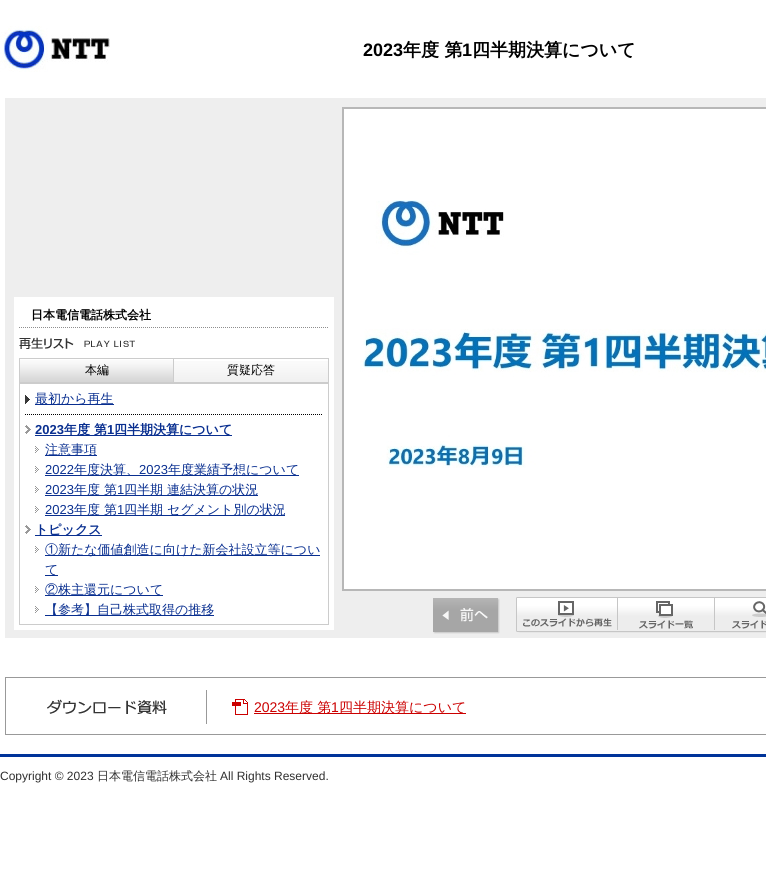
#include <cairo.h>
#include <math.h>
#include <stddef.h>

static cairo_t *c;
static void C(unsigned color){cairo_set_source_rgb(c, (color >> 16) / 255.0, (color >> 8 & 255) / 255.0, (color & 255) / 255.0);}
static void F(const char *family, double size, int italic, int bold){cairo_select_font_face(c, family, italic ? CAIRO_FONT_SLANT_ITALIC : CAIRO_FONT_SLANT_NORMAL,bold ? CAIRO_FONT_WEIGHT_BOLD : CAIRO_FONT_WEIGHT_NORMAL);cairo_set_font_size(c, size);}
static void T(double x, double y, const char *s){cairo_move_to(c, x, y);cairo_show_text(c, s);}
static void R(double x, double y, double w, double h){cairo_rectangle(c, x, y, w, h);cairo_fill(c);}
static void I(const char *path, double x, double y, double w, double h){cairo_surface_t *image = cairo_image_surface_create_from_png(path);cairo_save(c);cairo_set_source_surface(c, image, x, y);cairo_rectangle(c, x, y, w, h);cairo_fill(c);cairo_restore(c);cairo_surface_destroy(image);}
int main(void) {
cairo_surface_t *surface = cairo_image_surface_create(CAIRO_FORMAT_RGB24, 766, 874);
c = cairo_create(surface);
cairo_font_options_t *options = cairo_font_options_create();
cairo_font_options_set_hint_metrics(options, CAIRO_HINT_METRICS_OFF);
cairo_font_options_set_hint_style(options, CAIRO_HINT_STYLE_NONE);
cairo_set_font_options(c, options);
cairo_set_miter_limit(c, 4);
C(0xffffff);
cairo_paint(c);
I("1.png",0,26,110,46);
F("Liberation Sans",18,0,1);
C(0x000000);
T(363,56,"2023");
F("WenQuanYi Zen Hei",18,0,1);
T(403,56,"年度 第");
F("Liberation Sans",18,0,1);
T(462,56,"1");
F("WenQuanYi Zen Hei",18,0,1);
T(472,56,"四半期決算について");
C(0xeeeeee);
R(5,98,761,540);
C(0xffffff);
R(14,297,320,333);
cairo_new_path(c);
cairo_move_to(c,19,327.5);
cairo_line_to(c,329,327.5);
C(0x8e8e8e);
cairo_set_line_width(c,1);
cairo_set_dash(c,(double[]){1,1},2,0);
cairo_stroke(c);
F("WenQuanYi Zen Hei",12,0,1);
C(0x000000);
T(31,319,"日本電信電話株式会社");
I("2.png",19,337,116,12);
I("3.png",20,360,153,22);
cairo_rectangle(c,19.5,358.5,154,24);
C(0xcccccc);
cairo_set_dash(c,NULL,0,0);
cairo_stroke(c);
F("WenQuanYi Zen Hei Medium",12,0,0);
C(0x000000);
T(85,374,"本編");
I("4.png",174,361,154,21);
C(0xcccccc);
R(174,358,155,1);
R(328,358,1,25);
R(174,382,155,1);
C(0x000000);
T(227,374,"質疑応答");
cairo_rectangle(c,19.5,383.5,309,241);
C(0xcccccc);
cairo_stroke(c);
I("5.png",25,395,5,9);
cairo_new_path(c);
cairo_move_to(c,25,414.5);
cairo_line_to(c,323,414.5);
C(0x000000);
cairo_set_dash(c,(double[]){1,1},2,0);
cairo_stroke(c);
C(0x092f90);
R(35,404,79,1);
F("WenQuanYi Zen Hei Medium",13,0,0);
T(35,403,"最初から再生");
I("6.png",25,425,6,9);
F("Liberation Sans",13,0,1);
T(35,434,"2023");
R(35,435,197,1);
F("WenQuanYi Zen Hei",13,0,1);
T(64,434,"年度 第");
F("Liberation Sans",13,0,1);
T(107,434,"1");
F("WenQuanYi Zen Hei",13,0,1);
T(114,434,"四半期決算について");
I("7.png",35,446,4,7);
R(45,455,52,1);
F("WenQuanYi Zen Hei Medium",13,0,0);
T(45,454,"注意事項");
I("7.png",35,466,4,7);
F("Liberation Sans",13,0,0);
T(45,474,"2022");
R(45,475,254,1);
F("WenQuanYi Zen Hei Medium",13,0,0);
T(74,474,"年度決算、");
F("Liberation Sans",13,0,0);
T(139,474,"2023");
F("WenQuanYi Zen Hei Medium",13,0,0);
T(168,474,"年度業績予想について");
I("7.png",35,486,4,7);
F("Liberation Sans",13,0,0);
T(45,494,"2023");
R(45,495,213,1);
F("WenQuanYi Zen Hei Medium",13,0,0);
T(74,494,"年度 第");
F("Liberation Sans",13,0,0);
T(117,494,"1");
F("WenQuanYi Zen Hei Medium",13,0,0);
T(124,494,"四半期 連結決算の状況");
I("7.png",35,506,4,7);
F("Liberation Sans",13,0,0);
T(45,514,"2023");
R(45,515,240,1);
F("WenQuanYi Zen Hei Medium",13,0,0);
T(74,514,"年度 第");
F("Liberation Sans",13,0,0);
T(117,514,"1");
F("WenQuanYi Zen Hei Medium",13,0,0);
T(124,514,"四半期 セグメント別の状況");
I("6.png",25,525,6,9);
R(35,535,67,1);
F("WenQuanYi Zen Hei",13,0,1);
T(35,534,"トピックス");
I("7.png",35,546,4,7);
R(45,555,275,1);
F("WenQuanYi Zen Hei Medium",13,0,0);
T(45,554,"①新たな価値創造に向けた新会社設立等につい");
R(45,575,13,1);
T(45,574,"て");
I("7.png",35,586,4,7);
R(45,595,118,1);
T(45,594,"②株主還元について");
I("7.png",35,606,4,7);
R(45,615,169,1);
T(45,614,"【参考】自己株式取得の推移");
C(0xffffff);
cairo_rectangle(c,343,108,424,482);
cairo_fill_preserve(c);
C(0xb7b7b7);
cairo_set_line_width(c,2);
cairo_set_dash(c,NULL,0,0);
cairo_stroke(c);
I("8.png",360,200,406,268);
I("9.png",433,598,67,36);
I("10.png",516,597,102,36);
I("11.png",618,597,97,36);
I("12.png",715,597,51,36);
cairo_rectangle(c,5.5,677.5,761,57);
C(0x999999);
cairo_set_line_width(c,1);
cairo_stroke(c);
R(206,690,1,34);
I("13.png",47,699,120,15);
I("14.png",232,699,16,16);
F("Liberation Sans",14,0,0);
C(0xcb0000);
T(254,712,"2023");
R(254,713,212,1);
F("WenQuanYi Zen Hei Medium",14,0,0);
T(285,712,"年度 第");
F("Liberation Sans",14,0,0);
T(331,712,"1");
F("WenQuanYi Zen Hei Medium",14,0,0);
T(339,712,"四半期決算について");
C(0x003399);
R(0,754,766,3);
F("Liberation Sans",12,0,0);
C(0x2f2f2f);
T(0,780,"Copyright © 2023");
F("WenQuanYi Zen Hei Medium",12,0,0);
T(97,780,"日本電信電話株式会社");
F("Liberation Sans",12,0,0);
T(220,780,"All Rights Reserved.");
cairo_surface_write_to_png(surface, "o.png");
cairo_font_options_destroy(options);
cairo_destroy(c);
cairo_surface_destroy(surface);
return 0;
}
